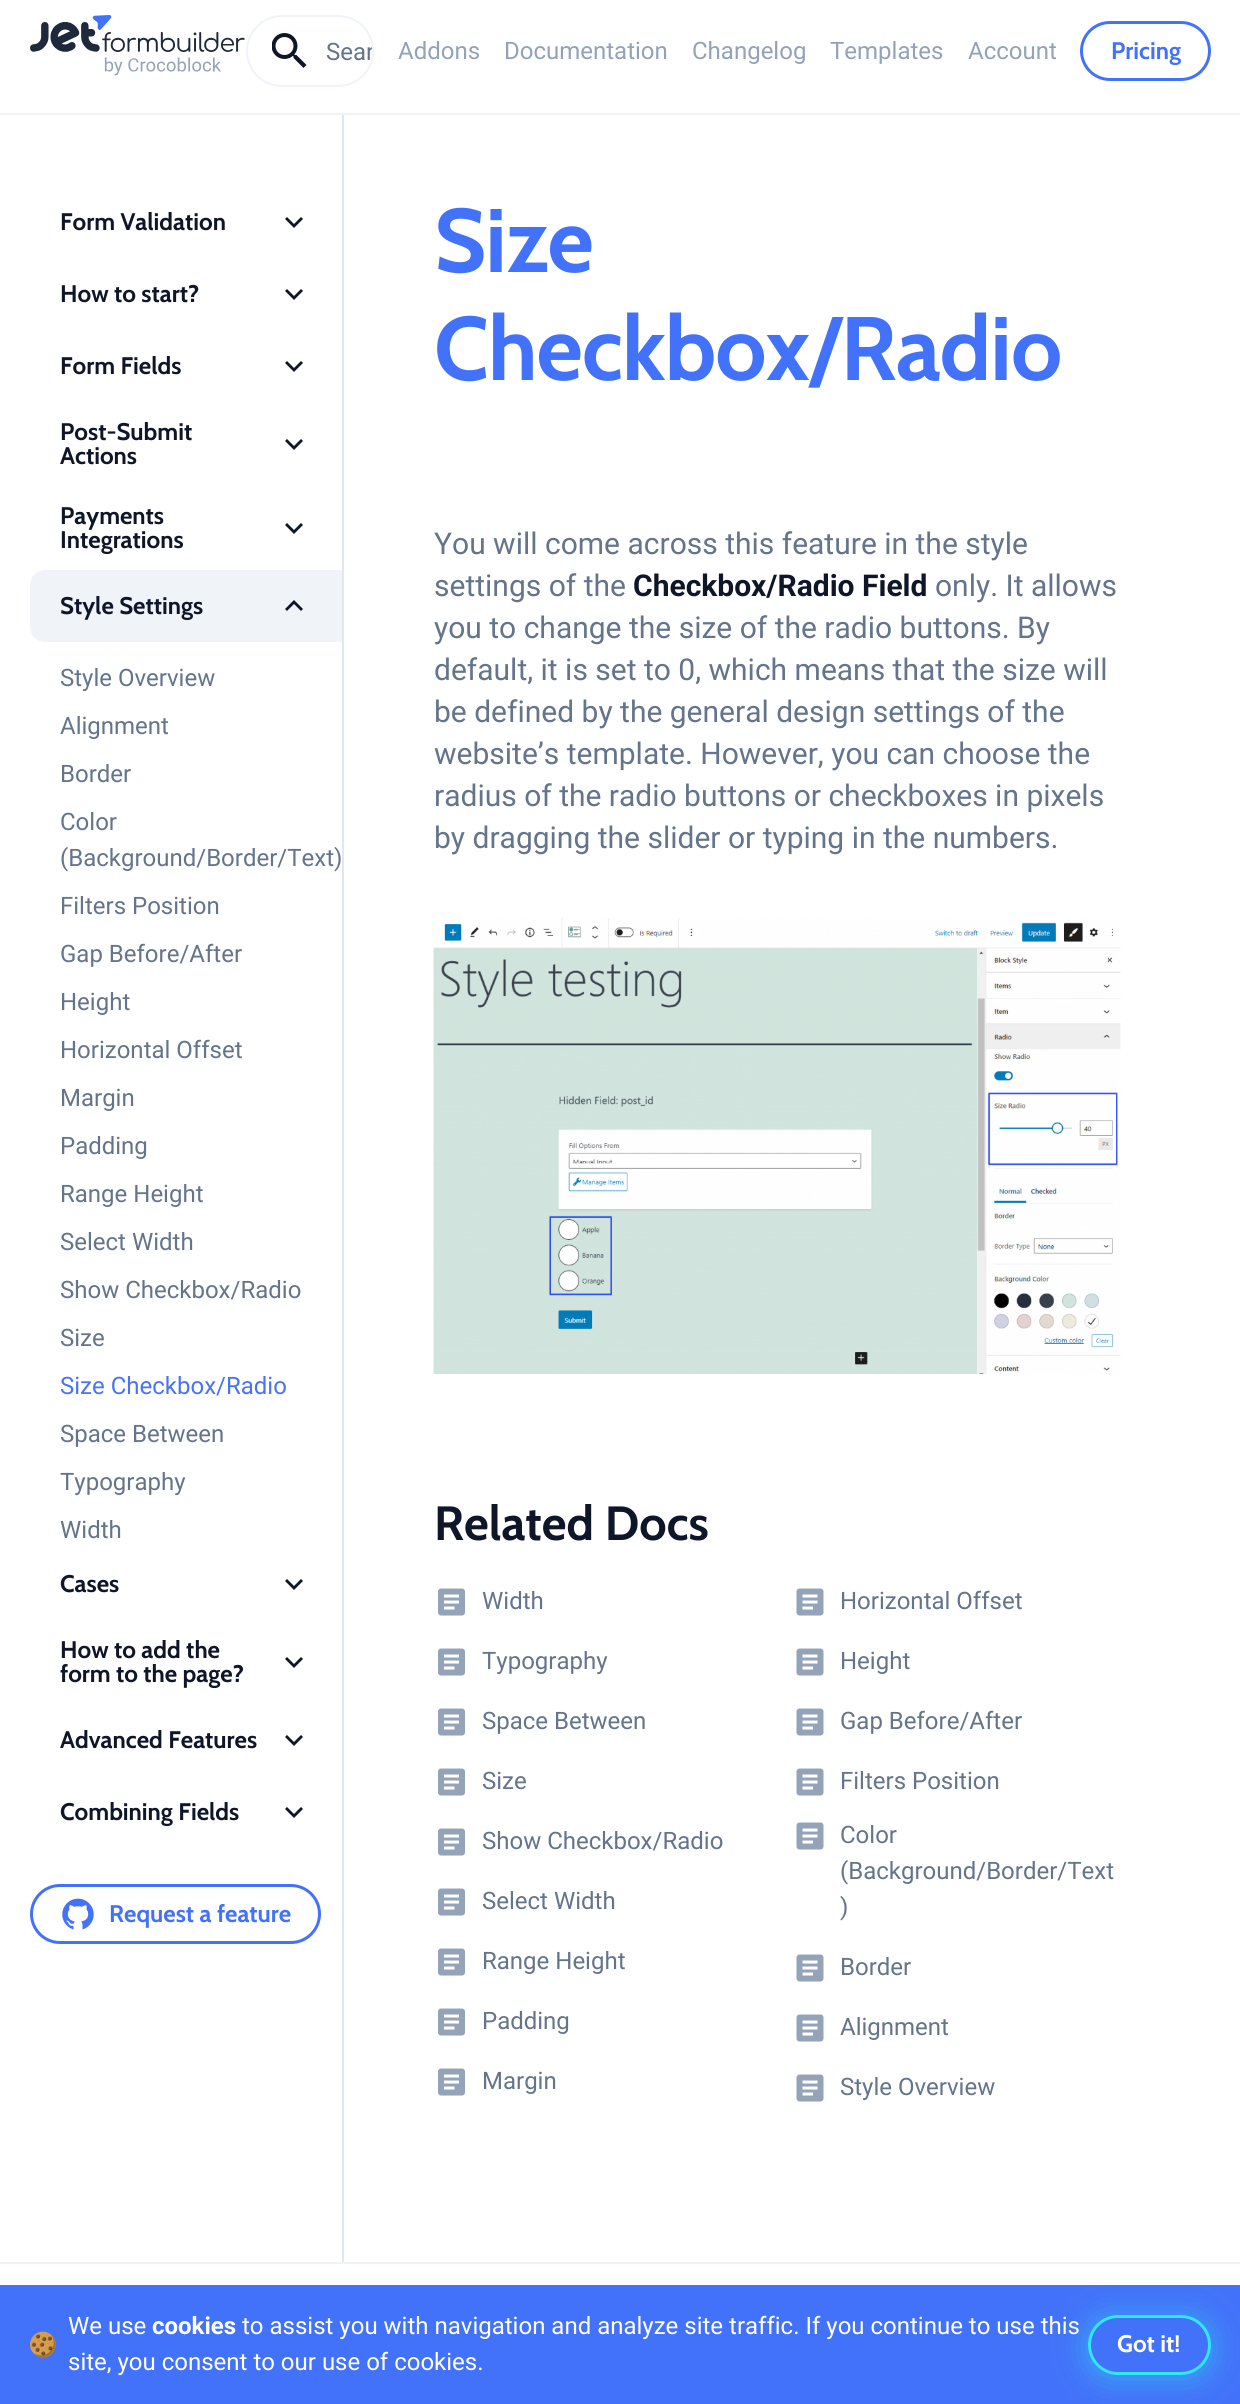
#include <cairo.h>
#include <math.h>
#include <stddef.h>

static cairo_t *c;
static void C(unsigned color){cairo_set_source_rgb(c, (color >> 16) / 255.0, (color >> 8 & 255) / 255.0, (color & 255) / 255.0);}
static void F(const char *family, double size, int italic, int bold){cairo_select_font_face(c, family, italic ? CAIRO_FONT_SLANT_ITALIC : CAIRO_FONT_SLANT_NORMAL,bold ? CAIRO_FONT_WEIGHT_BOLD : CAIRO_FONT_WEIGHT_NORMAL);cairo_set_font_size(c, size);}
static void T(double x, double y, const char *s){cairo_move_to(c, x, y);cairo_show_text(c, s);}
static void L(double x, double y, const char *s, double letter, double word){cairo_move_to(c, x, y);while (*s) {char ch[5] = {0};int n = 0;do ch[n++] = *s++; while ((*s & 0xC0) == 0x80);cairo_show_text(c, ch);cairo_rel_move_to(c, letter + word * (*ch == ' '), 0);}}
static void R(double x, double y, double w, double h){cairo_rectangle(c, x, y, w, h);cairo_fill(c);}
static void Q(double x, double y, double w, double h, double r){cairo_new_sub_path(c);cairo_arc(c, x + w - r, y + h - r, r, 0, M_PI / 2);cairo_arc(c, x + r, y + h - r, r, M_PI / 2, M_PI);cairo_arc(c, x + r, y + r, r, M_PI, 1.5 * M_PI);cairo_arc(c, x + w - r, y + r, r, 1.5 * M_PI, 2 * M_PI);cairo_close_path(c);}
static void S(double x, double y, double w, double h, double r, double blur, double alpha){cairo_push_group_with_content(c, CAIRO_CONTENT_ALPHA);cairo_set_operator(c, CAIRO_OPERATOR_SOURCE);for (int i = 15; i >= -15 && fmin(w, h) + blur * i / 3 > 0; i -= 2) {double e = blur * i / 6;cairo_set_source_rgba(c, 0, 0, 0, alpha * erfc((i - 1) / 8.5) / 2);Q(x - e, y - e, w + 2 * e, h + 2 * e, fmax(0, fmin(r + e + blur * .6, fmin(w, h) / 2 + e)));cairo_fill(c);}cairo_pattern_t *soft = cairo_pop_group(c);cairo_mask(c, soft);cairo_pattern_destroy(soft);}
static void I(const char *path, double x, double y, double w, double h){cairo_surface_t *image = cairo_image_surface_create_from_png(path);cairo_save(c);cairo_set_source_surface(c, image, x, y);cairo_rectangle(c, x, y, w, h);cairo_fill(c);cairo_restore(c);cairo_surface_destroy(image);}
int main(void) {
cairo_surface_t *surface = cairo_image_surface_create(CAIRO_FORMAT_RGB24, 1240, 2404);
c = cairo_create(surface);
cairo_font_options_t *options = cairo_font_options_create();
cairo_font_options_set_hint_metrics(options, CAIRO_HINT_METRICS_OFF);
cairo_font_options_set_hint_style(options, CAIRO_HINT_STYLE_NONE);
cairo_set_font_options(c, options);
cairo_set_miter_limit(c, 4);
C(0xffffff);
cairo_paint(c);
I("1.png",30,15,215,61);
Q(247,16,126,70,35);
C(0xf0f4f9);
cairo_stroke(c);
I("2.png",272,33,35,35);
cairo_save(c);
Q(248,17,124,69,34.5);
cairo_clip(c);
F("Roboto",24,0,0);
C(0x64748b);
T(326,60,"Sear");
cairo_restore(c);
F("Roboto",24,0,0);
C(0x93a2b8);
T(398,59,"Addons");
T(504,59,"Documentation");
T(692,59,"Changelog");
T(830,59,"Templates");
T(968,59,"Account");
Q(1081.5,22.5,128,57,28.5);
C(0x4272f9);
cairo_set_line_width(c,3);
cairo_stroke(c);
F("Cabin",24,0,1);
T(1111,59,"Pricing");
C(0xe0e7ef);
R(342,114,2,2148);
C(0xf0f4f9);
R(0,113,1240,2);
C(0x0f1629);
T(60,230,"Form Validation");
C(0x0f172a);
cairo_new_path(c);
cairo_move_to(c,287,217);
cairo_line_to(c,294,224);
cairo_line_to(c,301,217);
cairo_line_to(c,303,219);
cairo_line_to(c,294,228);
cairo_line_to(c,285,219);
cairo_close_path(c);
cairo_fill(c);
C(0x0f1629);
T(60,302,"How to start?");
C(0x0f172a);
cairo_new_path(c);
cairo_move_to(c,287,289);
cairo_line_to(c,294,296);
cairo_line_to(c,301,289);
cairo_line_to(c,303,291);
cairo_line_to(c,294,300);
cairo_line_to(c,285,291);
cairo_close_path(c);
cairo_fill(c);
C(0x0f1629);
T(60,374,"Form Fields");
C(0x0f172a);
cairo_new_path(c);
cairo_move_to(c,287,361);
cairo_line_to(c,294,368);
cairo_line_to(c,301,361);
cairo_line_to(c,303,363);
cairo_line_to(c,294,372);
cairo_line_to(c,285,363);
cairo_close_path(c);
cairo_fill(c);
C(0x0f1629);
T(60,440,"Post-Submit");
C(0x0f172a);
cairo_new_path(c);
cairo_move_to(c,287,439);
cairo_line_to(c,294,446);
cairo_line_to(c,301,439);
cairo_line_to(c,303,441);
cairo_line_to(c,294,450);
cairo_line_to(c,285,441);
cairo_close_path(c);
cairo_fill(c);
C(0x0f1629);
T(60,464,"Actions");
T(60,524,"Payments");
C(0x0f172a);
cairo_new_path(c);
cairo_move_to(c,287,523);
cairo_line_to(c,294,530);
cairo_line_to(c,301,523);
cairo_line_to(c,303,525);
cairo_line_to(c,294,534);
cairo_line_to(c,285,525);
cairo_close_path(c);
cairo_fill(c);
C(0x0f1629);
T(60,548,"Integrations");
C(0xf0f4f9);
cairo_new_path(c);
cairo_move_to(c,45,570);
cairo_line_to(c,342,570);
cairo_line_to(c,342,642);
cairo_line_to(c,45,642);
cairo_curve_to(c,36.5,642,30,635.5,30,627);
cairo_line_to(c,30,585);
cairo_curve_to(c,30,576.5,36.5,570,45,570);
cairo_close_path(c);
cairo_fill(c);
C(0x0f1629);
T(60,614,"Style Settings");
C(0x0f172a);
cairo_new_path(c);
cairo_move_to(c,287,611);
cairo_line_to(c,294,604);
cairo_line_to(c,301,611);
cairo_line_to(c,303,609);
cairo_line_to(c,294,600);
cairo_line_to(c,285,609);
cairo_close_path(c);
cairo_fill(c);
F("Roboto",24,0,0);
C(0x64748b);
T(60,686,"Style Overview");
T(60,734,"Alignment");
T(60,782,"Border");
T(60,830,"Color");
T(60,866,"(Background/Border/Text)");
T(60,914,"Filters Position");
T(60,962,"Gap Before/After");
T(60,1010,"Height");
T(60,1058,"Horizontal Offset");
T(60,1106,"Margin");
T(60,1154,"Padding");
T(60,1202,"Range Height");
T(60,1250,"Select Width");
T(60,1298,"Show Checkbox/Radio");
T(60,1346,"Size");
C(0x4a72f8);
T(60,1394,"Size Checkbox/Radio");
C(0x64748b);
T(60,1442,"Space Between");
T(60,1490,"Typography");
T(60,1538,"Width");
F("Cabin",24,0,1);
C(0x0f1629);
T(60,1592,"Cases");
C(0x0f172a);
cairo_new_path(c);
cairo_move_to(c,287,1579);
cairo_line_to(c,294,1586);
cairo_line_to(c,301,1579);
cairo_line_to(c,303,1581);
cairo_line_to(c,294,1590);
cairo_line_to(c,285,1581);
cairo_close_path(c);
cairo_fill(c);
C(0x0f1629);
T(60,1658,"How to add the");
C(0x0f172a);
cairo_new_path(c);
cairo_move_to(c,287,1657);
cairo_line_to(c,294,1664);
cairo_line_to(c,301,1657);
cairo_line_to(c,303,1659);
cairo_line_to(c,294,1668);
cairo_line_to(c,285,1659);
cairo_close_path(c);
cairo_fill(c);
C(0x0f1629);
T(60,1682,"form to the page?");
T(60,1748,"Advanced Features");
C(0x0f172a);
cairo_new_path(c);
cairo_move_to(c,287,1735);
cairo_line_to(c,294,1742);
cairo_line_to(c,301,1735);
cairo_line_to(c,303,1737);
cairo_line_to(c,294,1746);
cairo_line_to(c,285,1737);
cairo_close_path(c);
cairo_fill(c);
C(0x0f1629);
T(60,1820,"Combining Fields");
C(0x0f172a);
cairo_new_path(c);
cairo_move_to(c,287,1807);
cairo_line_to(c,294,1814);
cairo_line_to(c,301,1807);
cairo_line_to(c,303,1809);
cairo_line_to(c,294,1818);
cairo_line_to(c,285,1809);
cairo_close_path(c);
cairo_fill(c);
Q(31.5,1885.5,288,57,28.5);
C(0x4272f9);
cairo_stroke(c);
I("3.png",62,1898,32,32);
T(109,1922,"Request a feature");
F("Cabin",90,0,1);
L(434,272,"Size",-.9,0);
L(434,380,"Checkbox/Radio",-.9,0);
F("Roboto",30,0,0);
C(0x64748b);
T(434,554,"You will come across this feature in the style");
T(434,596,"settings of the");
F("Roboto",30,0,1);
C(0x0f1629);
T(633,596,"Checkbox/Radio Field");
F("Roboto",30,0,0);
C(0x64748b);
T(935,596,"only. It allows");
T(434,638,"you to change the size of the radio buttons. By");
T(434,680,"default, it is set to 0, which means that the size will");
T(434,722,"be defined by the general design settings of the");
T(434,764,"website’s template. However, you can choose the");
T(434,806,"radius of the radio buttons or checkboxes in pixels");
T(434,848,"by dragging the slider or typing in the numbers.");
I("4.png",433,918,688,456);
F("Cabin",48,0,1);
C(0x0f1629);
T(434,1540,"Related Docs");
I("5.png",438,1588,27,28);
F("Roboto",24,0,0);
C(0x64748b);
T(482,1609,"Width");
I("6.png",796,1588,28,28);
T(840,1609,"Horizontal Offset");
I("5.png",438,1648,27,28);
T(482,1669,"Typography");
I("6.png",796,1648,28,28);
T(840,1669,"Height");
I("5.png",438,1708,27,28);
T(482,1729,"Space Between");
I("6.png",796,1708,28,28);
T(840,1729,"Gap Before/After");
I("5.png",438,1768,27,28);
T(482,1789,"Size");
I("6.png",796,1768,28,28);
T(840,1789,"Filters Position");
I("5.png",438,1828,27,28);
T(482,1849,"Show Checkbox/Radio");
I("6.png",796,1822,28,28);
T(840,1843,"Color");
T(840,1879,"(Background/Border/Text");
T(840,1915,")");
I("5.png",438,1888,27,28);
T(482,1909,"Select Width");
I("5.png",438,1948,27,28);
T(482,1969,"Range Height");
I("6.png",796,1954,28,28);
T(840,1975,"Border");
I("5.png",438,2008,27,28);
T(482,2029,"Padding");
I("6.png",796,2014,28,28);
T(840,2035,"Alignment");
I("5.png",438,2068,27,28);
T(482,2089,"Margin");
I("6.png",796,2074,28,28);
T(840,2095,"Style Overview");
C(0xf0f4f9);
R(0,2262,1240,2);
C(0x4272f9);
R(0,2285,1240,119);
I("7.png",30,2331,26,27);
C(0xffffff);
T(68,2334,"We use");
F("Roboto",24,0,1);
T(152,2334,"cookies");
F("Roboto",24,0,0);
T(242,2334,"to assist you with navigation and analyze site traffic. If you continue to use this");
T(68,2370,"site, you consent to our use of cookies.");
cairo_save(c);
cairo_set_fill_rule(c,CAIRO_FILL_RULE_EVEN_ODD);
cairo_new_path(c);
cairo_move_to(c,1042,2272);
cairo_line_to(c,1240,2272);
cairo_line_to(c,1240,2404);
cairo_line_to(c,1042,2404);
cairo_close_path(c);
cairo_move_to(c,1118,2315);
cairo_line_to(c,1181,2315);
cairo_curve_to(c,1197.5,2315,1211,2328.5,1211,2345);
cairo_curve_to(c,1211,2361.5,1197.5,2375,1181,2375);
cairo_line_to(c,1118,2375);
cairo_curve_to(c,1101.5,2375,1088,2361.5,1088,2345);
cairo_curve_to(c,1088,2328.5,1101.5,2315,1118,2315);
cairo_close_path(c);
cairo_clip(c);
C(0x2ee6f2);
S(1088,2318,123,60,30,15,.5);
cairo_restore(c);
Q(1089.5,2316.5,120,57,28.5);
C(0x2ee8f4);
cairo_stroke(c);
F("Cabin",24,0,1);
C(0xffffff);
T(1117,2352,"Got it!");
cairo_surface_write_to_png(surface, "o.png");
cairo_font_options_destroy(options);
cairo_destroy(c);
cairo_surface_destroy(surface);
return 0;
}
